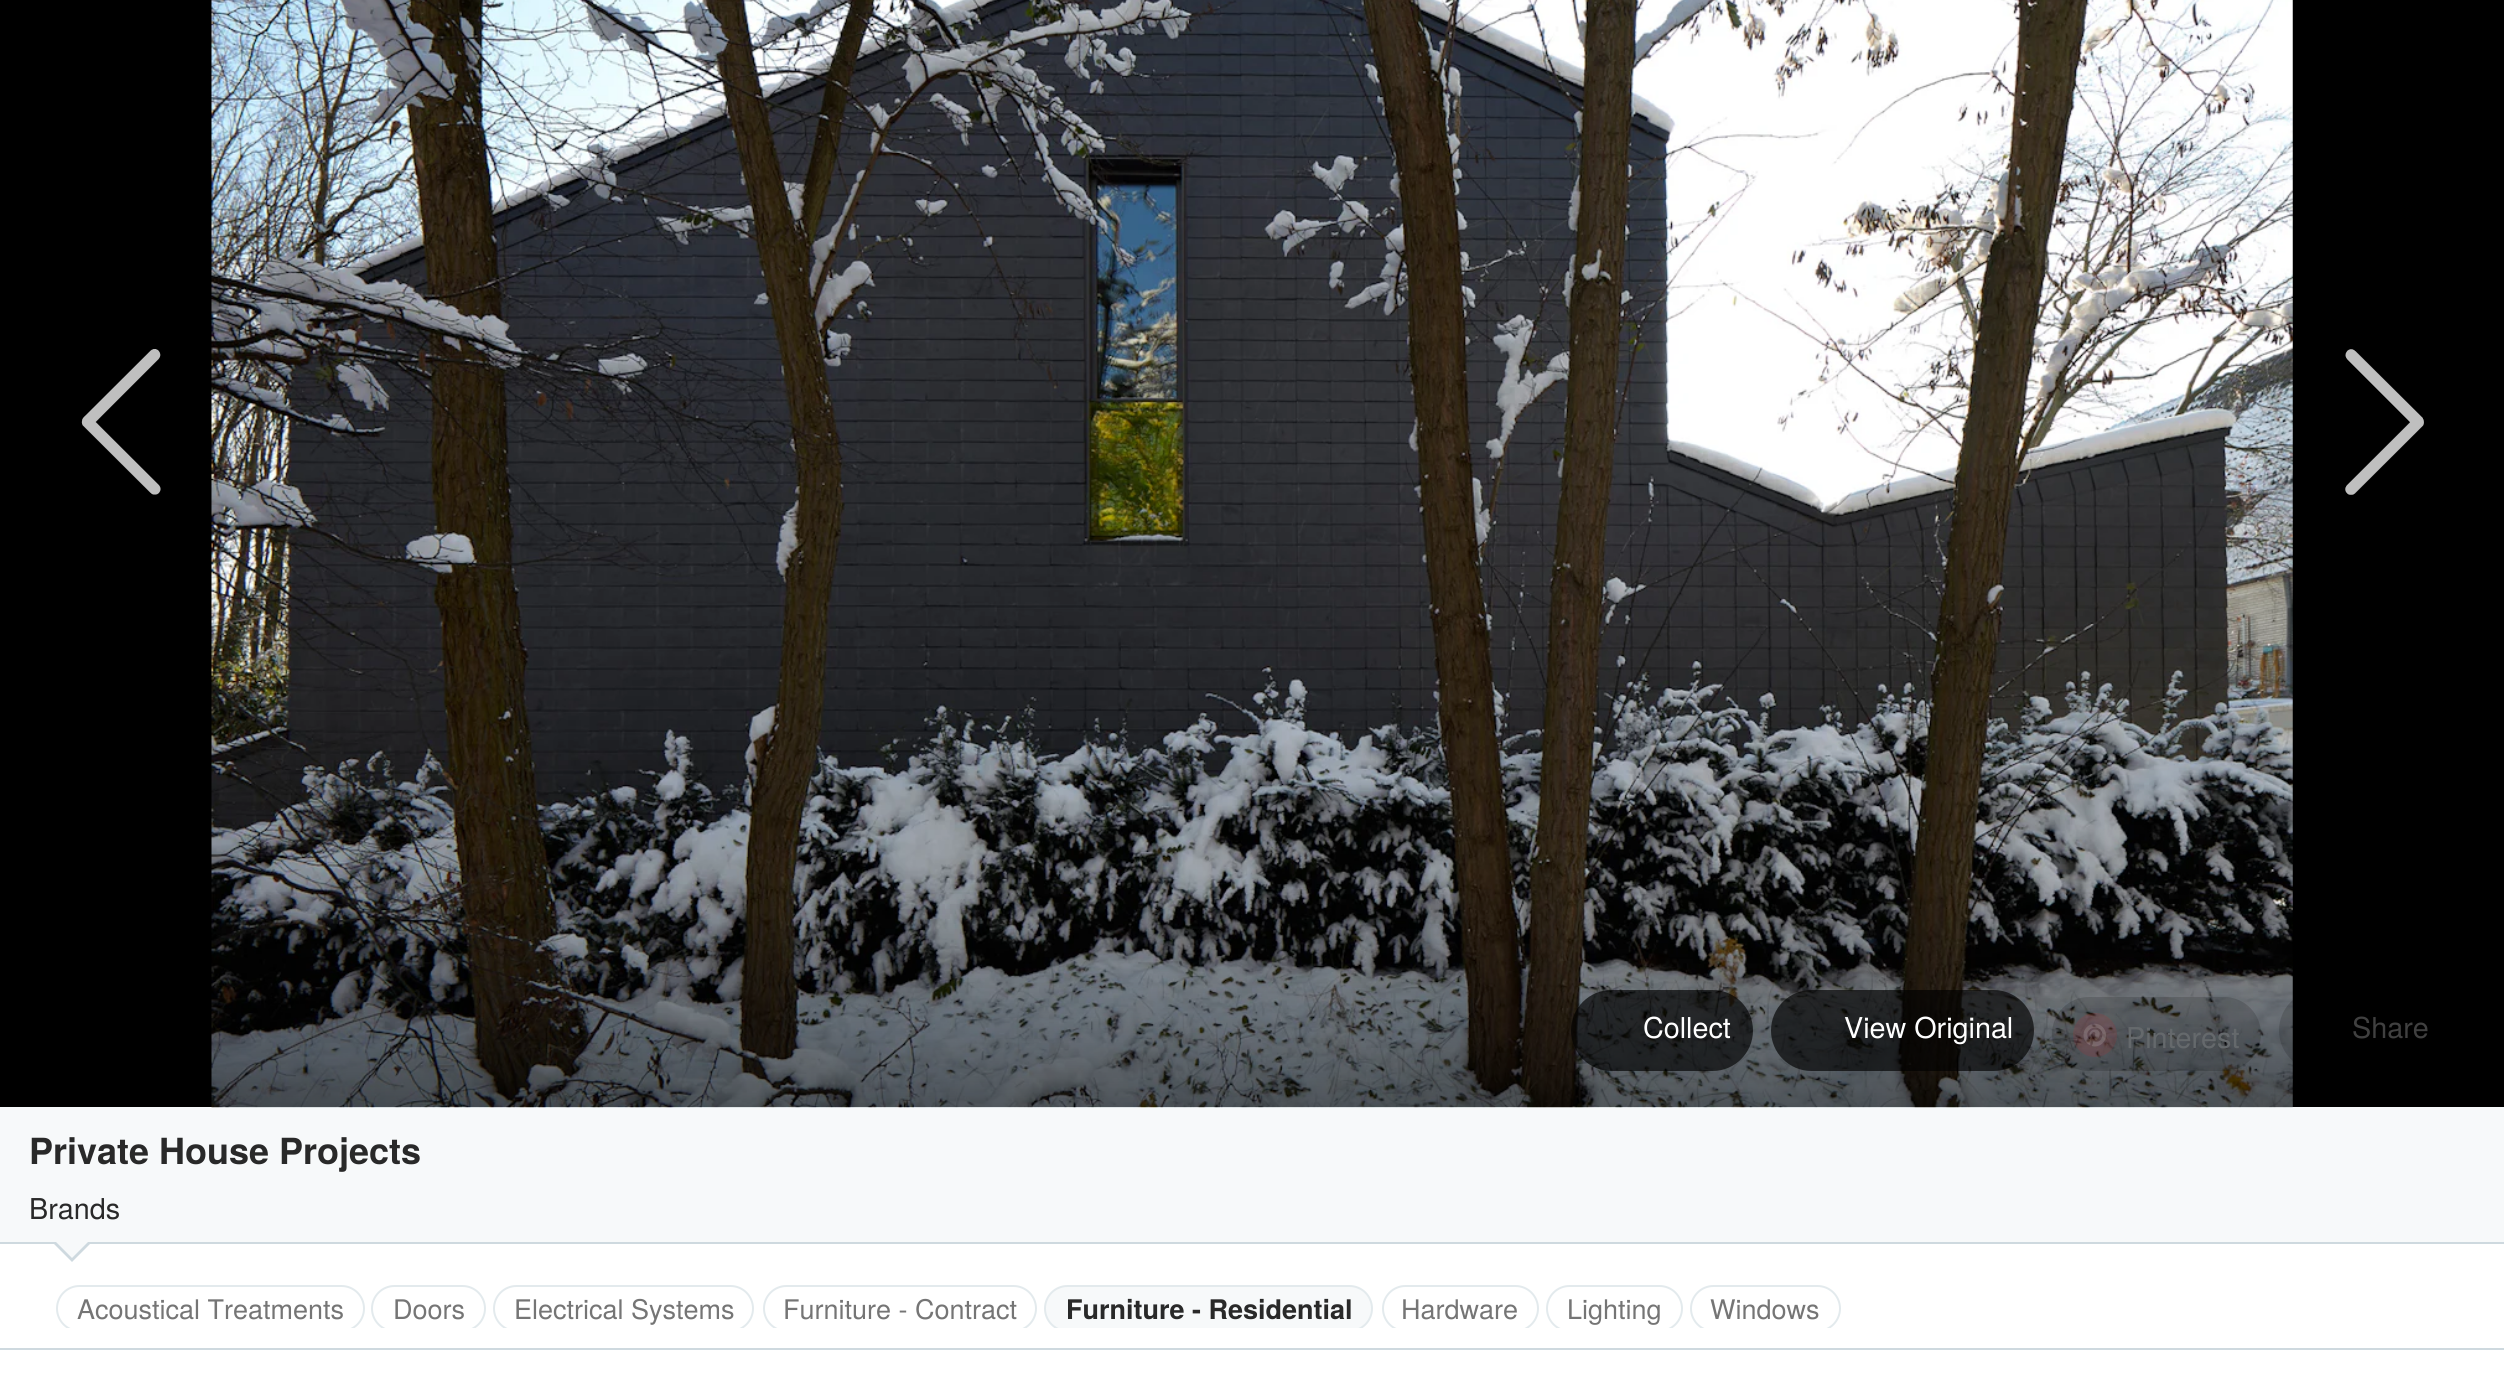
#include <cairo.h>
#include <math.h>
#include <stddef.h>

static cairo_t *c;
static void C(unsigned color){cairo_set_source_rgb(c, (color >> 16) / 255.0, (color >> 8 & 255) / 255.0, (color & 255) / 255.0);}
static void F(const char *family, double size, int italic, int bold){cairo_select_font_face(c, family, italic ? CAIRO_FONT_SLANT_ITALIC : CAIRO_FONT_SLANT_NORMAL,bold ? CAIRO_FONT_WEIGHT_BOLD : CAIRO_FONT_WEIGHT_NORMAL);cairo_set_font_size(c, size);}
static void T(double x, double y, const char *s){cairo_move_to(c, x, y);cairo_show_text(c, s);}
static void R(double x, double y, double w, double h){cairo_rectangle(c, x, y, w, h);cairo_fill(c);}
static void Q(double x, double y, double w, double h, double r){cairo_new_sub_path(c);cairo_arc(c, x + w - r, y + h - r, r, 0, M_PI / 2);cairo_arc(c, x + r, y + h - r, r, M_PI / 2, M_PI);cairo_arc(c, x + r, y + r, r, M_PI, 1.5 * M_PI);cairo_arc(c, x + w - r, y + r, r, 1.5 * M_PI, 2 * M_PI);cairo_close_path(c);}
static void I(const char *path, double x, double y, double w, double h){cairo_surface_t *image = cairo_image_surface_create_from_png(path);cairo_save(c);cairo_set_source_surface(c, image, x, y);cairo_rectangle(c, x, y, w, h);cairo_fill(c);cairo_restore(c);cairo_surface_destroy(image);}
int main(void) {
cairo_surface_t *surface = cairo_image_surface_create(CAIRO_FORMAT_RGB24, 2504, 1387);
c = cairo_create(surface);
cairo_font_options_t *options = cairo_font_options_create();
cairo_font_options_set_hint_metrics(options, CAIRO_HINT_METRICS_OFF);
cairo_font_options_set_hint_style(options, CAIRO_HINT_STYLE_NONE);
cairo_set_font_options(c, options);
cairo_set_miter_limit(c, 4);
cairo_pattern_t *gradient;
C(0xffffff);
cairo_paint(c);
C(0x000000);
R(0,0,2504,1107);
C(0xf7f9fa);
R(0,1107,2504,135);
I("1.png",211,0,2082,1108);
I("2.png",81,349,80,146);
I("3.png",2345,349,79,146);
gradient = cairo_pattern_create_linear(1252,1107,1252,882);
cairo_pattern_add_color_stop_rgba(gradient,0,0,0,0,.5);
cairo_pattern_add_color_stop_rgba(gradient,1,0,0,0,0);
cairo_set_source(c,gradient);
cairo_pattern_destroy(gradient);
R(211,892,2082,215);
cairo_set_source_rgba(c,0,0,0,0.65);
Q(1571,990,182,81,40.5);
cairo_fill(c);
F("TeX Gyre Heros",28.75,0,0);
C(0xffffff);
T(1643,1038,"Collect");
cairo_set_source_rgba(c,0,0,0,0.65);
Q(1771,990,263,81,40.5);
cairo_fill(c);
C(0xffffff);
T(1844,1038,"View Original");
cairo_set_source_rgba(c,0,0,0,0.16);
Q(2052,997,209,74,37);
cairo_fill(c);
I("4.png",2073,1013,44,44);
C(0x65696c);
T(2126,1048,"Pinterest");
cairo_set_source_rgba(c,0,0,0,0.16);
Q(2279,990,171,81,40.5);
cairo_fill(c);
C(0x404040);
T(2352,1038,"Share");
C(0xced9df);
R(0,1242,2504,2);
F("TeX Gyre Heros",36,0,1);
C(0x292929);
T(29,1164,"Private House Projects");
F("TeX Gyre Heros",28.75,0,0);
T(29,1219,"Brands");
C(0xced9df);
cairo_new_path(c);
cairo_move_to(c,52,1242);
cairo_line_to(c,92,1242);
cairo_line_to(c,72,1262);
cairo_close_path(c);
cairo_fill(c);
C(0xf7f9fa);
cairo_new_path(c);
cairo_move_to(c,54,1240);
cairo_line_to(c,90,1240);
cairo_line_to(c,72,1258);
cairo_close_path(c);
cairo_fill(c);
cairo_save(c);
cairo_rectangle(c,56,1271,2392,57);
cairo_clip(c);
Q(57,1286,307,45,22.5);
C(0xe3eaed);
cairo_stroke(c);
cairo_restore(c);
F("TeX Gyre Heros",27,0,0);
C(0x757575);
T(77,1319,"Acoustical Treatments");
cairo_save(c);
cairo_rectangle(c,56,1271,2392,57);
cairo_clip(c);
Q(372,1286,113,45,22.5);
C(0xe3eaed);
cairo_stroke(c);
cairo_restore(c);
T(393,1319,"Doors");
cairo_save(c);
cairo_rectangle(c,56,1271,2392,57);
cairo_clip(c);
Q(494,1286,259,45,22.5);
C(0xe3eaed);
cairo_stroke(c);
cairo_restore(c);
T(514,1319,"Electrical Systems");
cairo_save(c);
cairo_rectangle(c,56,1271,2392,57);
cairo_clip(c);
Q(764,1286,272,45,22.5);
C(0xe3eaed);
cairo_stroke(c);
cairo_restore(c);
T(783,1319,"Furniture - Contract");
cairo_save(c);
cairo_rectangle(c,56,1271,2392,57);
cairo_clip(c);
C(0xf7f9fa);
Q(1045,1286,327,45,22.5);
cairo_fill_preserve(c);
C(0xe3eaed);
cairo_stroke(c);
cairo_restore(c);
F("TeX Gyre Heros",27,0,1);
C(0x292929);
T(1066,1319,"Furniture - Residential");
cairo_save(c);
cairo_rectangle(c,56,1271,2392,57);
cairo_clip(c);
Q(1383,1286,155,45,22.5);
C(0xe3eaed);
cairo_stroke(c);
cairo_restore(c);
F("TeX Gyre Heros",27,0,0);
C(0x757575);
T(1401,1319,"Hardware");
cairo_save(c);
cairo_rectangle(c,56,1271,2392,57);
cairo_clip(c);
Q(1547,1286,135,45,22.5);
C(0xe3eaed);
cairo_stroke(c);
cairo_restore(c);
T(1567,1319,"Lighting");
cairo_save(c);
cairo_rectangle(c,56,1271,2392,57);
cairo_clip(c);
Q(1691,1286,149,45,22.5);
C(0xe3eaed);
cairo_stroke(c);
cairo_restore(c);
T(1710,1319,"Windows");
C(0xced9df);
R(0,1348,2504,2);
cairo_surface_write_to_png(surface, "o.png");
cairo_font_options_destroy(options);
cairo_destroy(c);
cairo_surface_destroy(surface);
return 0;
}
